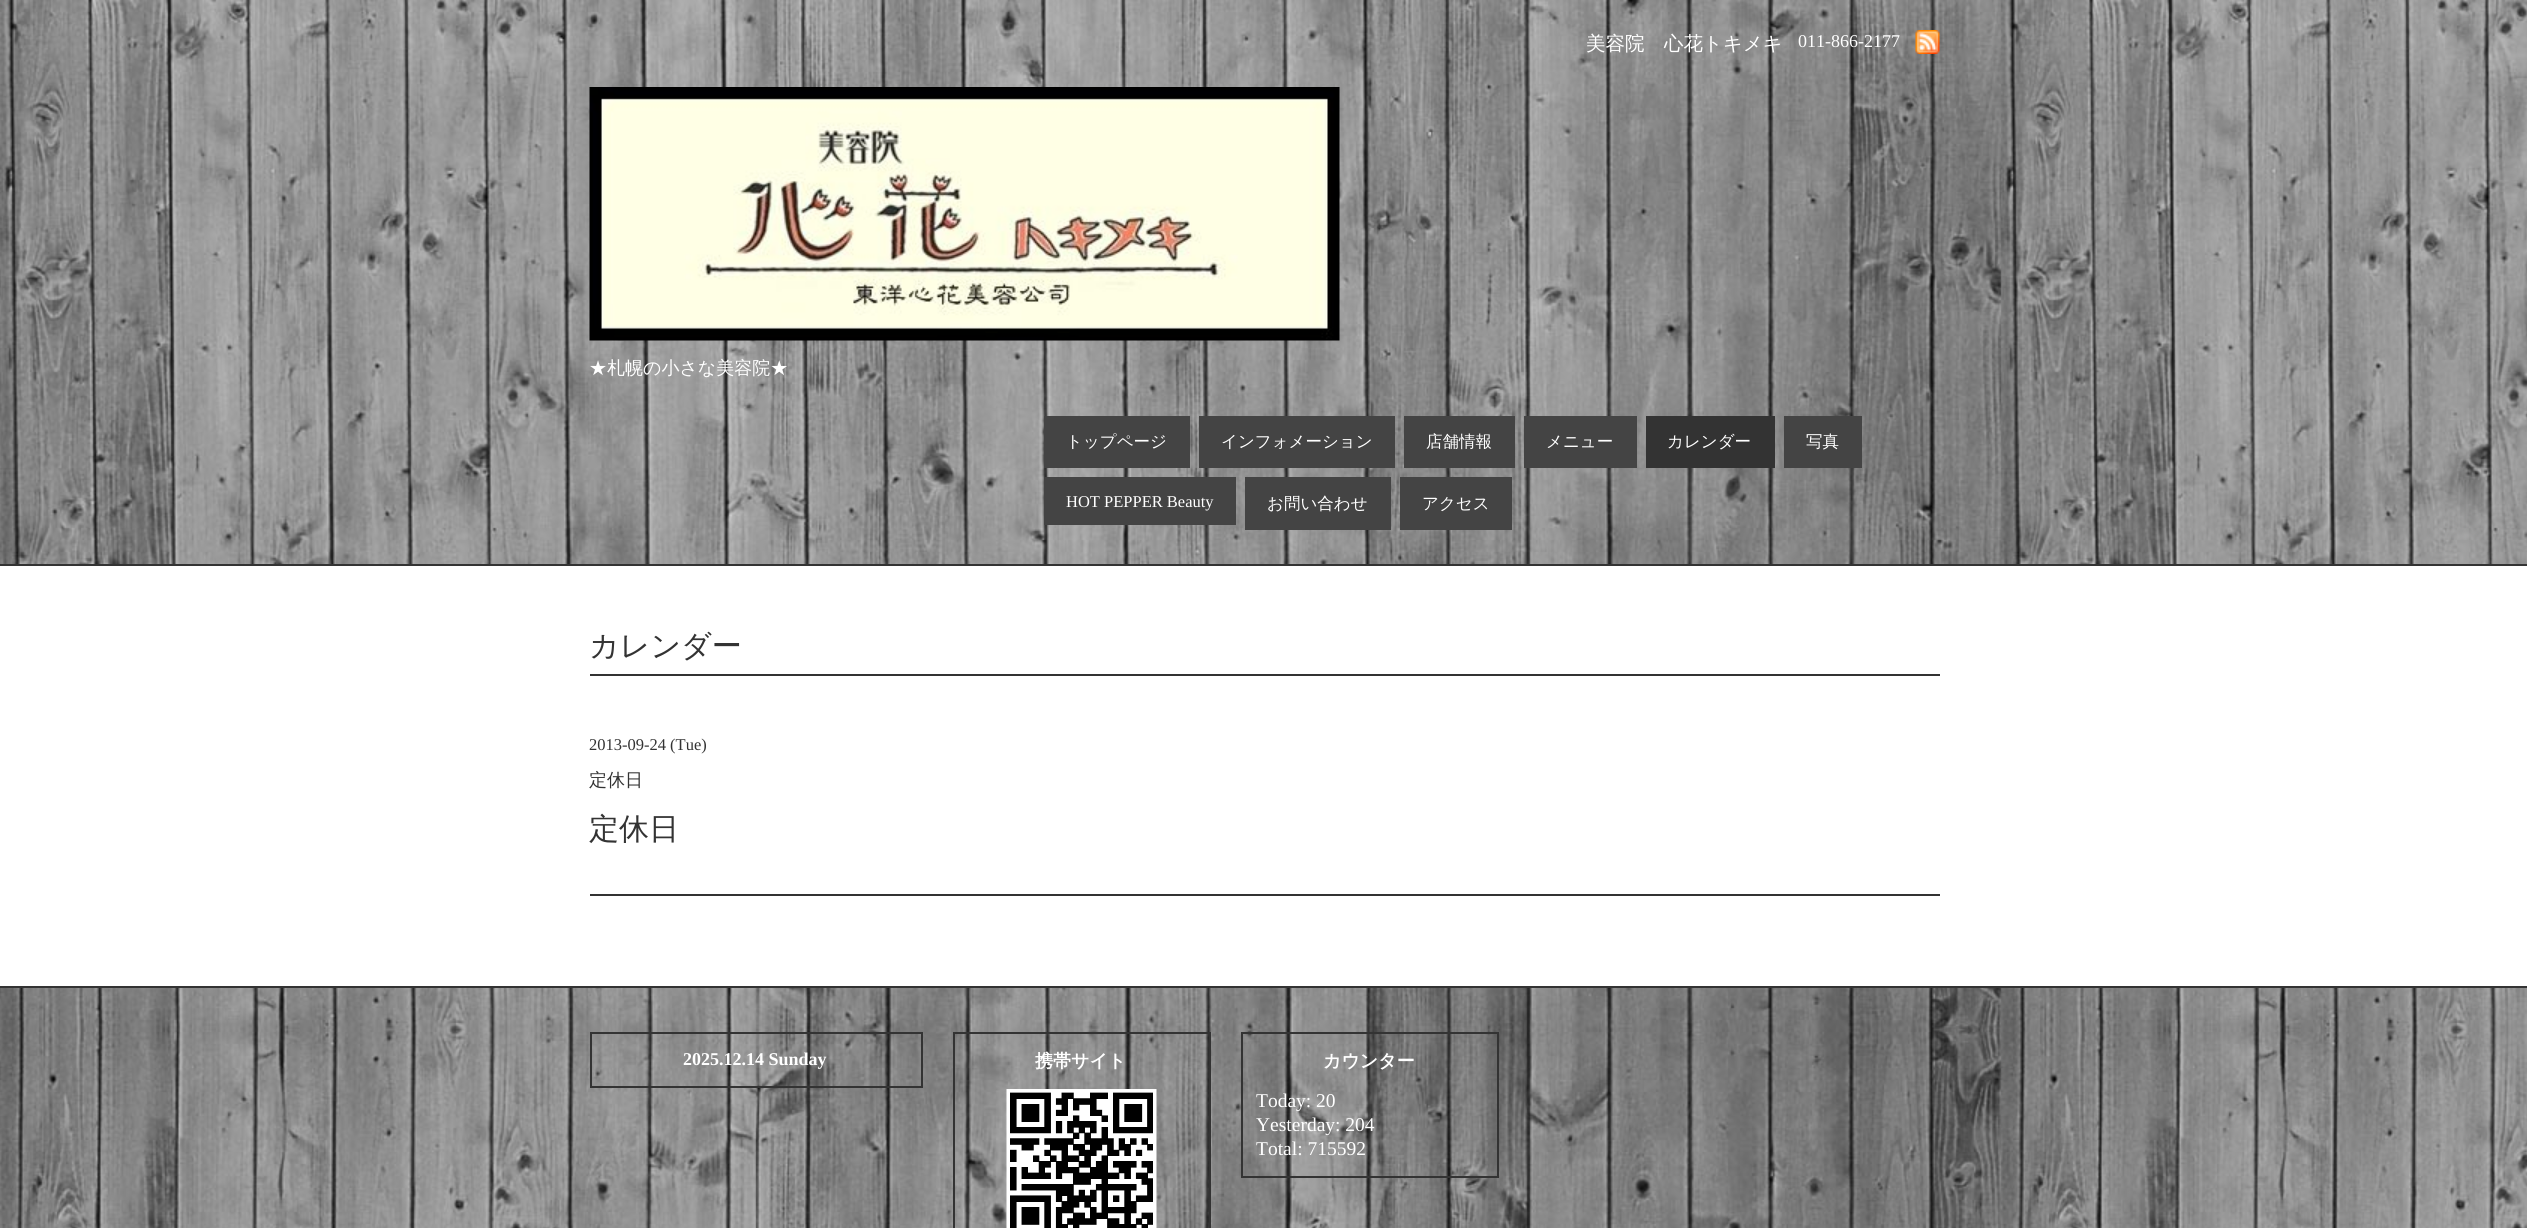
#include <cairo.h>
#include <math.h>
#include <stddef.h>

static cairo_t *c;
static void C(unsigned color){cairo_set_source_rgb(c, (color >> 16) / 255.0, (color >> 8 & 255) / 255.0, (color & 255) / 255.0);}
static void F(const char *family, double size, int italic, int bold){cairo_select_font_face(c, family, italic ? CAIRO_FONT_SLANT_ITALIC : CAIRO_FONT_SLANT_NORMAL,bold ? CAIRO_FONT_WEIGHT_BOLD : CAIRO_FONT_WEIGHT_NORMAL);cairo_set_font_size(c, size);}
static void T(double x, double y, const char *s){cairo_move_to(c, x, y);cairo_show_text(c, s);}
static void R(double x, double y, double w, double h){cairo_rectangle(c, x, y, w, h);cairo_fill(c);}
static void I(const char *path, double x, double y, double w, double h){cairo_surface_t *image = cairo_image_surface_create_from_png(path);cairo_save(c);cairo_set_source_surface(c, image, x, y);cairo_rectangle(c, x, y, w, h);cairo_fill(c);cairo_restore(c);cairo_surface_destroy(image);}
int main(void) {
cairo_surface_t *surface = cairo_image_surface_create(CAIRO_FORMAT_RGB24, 2527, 1228);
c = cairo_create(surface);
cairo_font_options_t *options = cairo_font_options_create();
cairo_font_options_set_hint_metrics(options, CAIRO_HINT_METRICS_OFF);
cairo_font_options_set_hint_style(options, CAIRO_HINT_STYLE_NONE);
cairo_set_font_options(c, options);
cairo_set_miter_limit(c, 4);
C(0xffffff);
cairo_paint(c);
I("1.png",0,0,2527,1228);
F("WenQuanYi Zen Hei Medium",19.5,0,0);
C(0xffffff);
T(1586,50,"美容院　心花トキメキ");
F("Liberation Serif",18,0,0);
T(1798,47,"011-866-2177");
I("2.png",1915,30,25,24);
I("3.png",589,87,751,254);
F("WenQuanYi Zen Hei Medium",18,0,0);
T(589,374,"★札幌の小さな美容院★");
C(0x444444);
R(1044,416,146,52);
F("WenQuanYi Zen Hei Medium",16.5,0,0);
C(0xffffff);
T(1066,447,"トップページ");
C(0x444444);
R(1199,416,196,52);
C(0xffffff);
T(1221,447,"インフォメーション");
C(0x444444);
R(1404,416,111,52);
C(0xffffff);
T(1426,447,"店舗情報");
C(0x444444);
R(1524,416,113,52);
C(0xffffff);
T(1546,447,"メニュー");
C(0x333333);
R(1646,416,129,52);
C(0xffffff);
T(1667,447,"カレンダー");
C(0x444444);
R(1784,416,78,52);
C(0xffffff);
T(1806,447,"写真");
C(0x444444);
R(1044,477,192,48);
F("Liberation Serif",16.5,0,0);
C(0xffffff);
T(1066,507,"HOT PEPPER Beauty");
C(0x444444);
R(1245,477,146,53);
F("WenQuanYi Zen Hei Medium",16.5,0,0);
C(0xffffff);
T(1267,509,"お問い合わせ");
C(0x444444);
R(1400,477,112,53);
C(0xffffff);
T(1422,509,"アクセス");
R(0,566,2527,420);
C(0x333333);
R(0,564,2527,2);
R(0,986,2527,2);
R(590,674,1350,2);
F("WenQuanYi Zen Hei Medium",30,0,0);
T(589,656,"カレンダー");
R(590,894,1350,2);
F("Liberation Serif",16.5,0,0);
T(589,750,"2013-09-24 (Tue)");
F("WenQuanYi Zen Hei Medium",18,0,0);
T(589,786,"定休日");
F("WenQuanYi Zen Hei Medium",30,0,0);
T(589,839,"定休日");
cairo_rectangle(c,591,1033,331,54);
cairo_stroke(c);
F("Liberation Serif",18,0,1);
C(0xffffff);
T(683,1065,"2025.12.14 Sunday");
cairo_rectangle(c,954,1033,256,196);
C(0x333333);
cairo_stroke(c);
F("WenQuanYi Zen Hei",18,0,1);
C(0xffffff);
T(1035,1067,"携帯サイト");
I("4.png",1006,1089,151,139);
cairo_rectangle(c,1242,1033,256,144);
C(0x333333);
cairo_stroke(c);
C(0xffffff);
T(1323,1067,"カウンター");
F("Liberation Serif",19.5,0,0);
T(1256,1107,"Today: 20");
T(1256,1131,"Yesterday: 204");
T(1256,1155,"Total: 715592");
cairo_surface_write_to_png(surface, "o.png");
cairo_font_options_destroy(options);
cairo_destroy(c);
cairo_surface_destroy(surface);
return 0;
}
